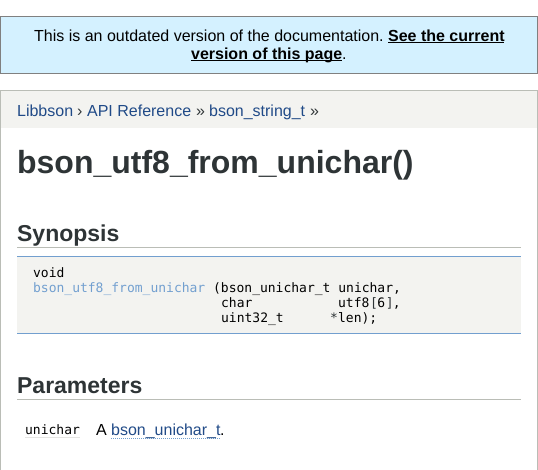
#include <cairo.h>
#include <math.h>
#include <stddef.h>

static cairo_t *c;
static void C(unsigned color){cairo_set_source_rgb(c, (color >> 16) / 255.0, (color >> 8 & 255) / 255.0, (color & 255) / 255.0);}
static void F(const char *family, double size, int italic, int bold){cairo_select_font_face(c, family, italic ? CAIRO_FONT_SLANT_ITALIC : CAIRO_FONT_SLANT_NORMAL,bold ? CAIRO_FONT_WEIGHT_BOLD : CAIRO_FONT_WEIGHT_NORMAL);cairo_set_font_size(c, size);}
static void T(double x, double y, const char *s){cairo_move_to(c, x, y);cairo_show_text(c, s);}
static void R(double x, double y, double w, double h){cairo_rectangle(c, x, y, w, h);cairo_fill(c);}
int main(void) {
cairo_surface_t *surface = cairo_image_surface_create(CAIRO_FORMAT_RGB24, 538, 470);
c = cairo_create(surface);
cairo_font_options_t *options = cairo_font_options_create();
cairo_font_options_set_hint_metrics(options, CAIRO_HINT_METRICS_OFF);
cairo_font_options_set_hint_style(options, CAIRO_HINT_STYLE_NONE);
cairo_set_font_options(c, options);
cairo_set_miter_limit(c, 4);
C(0xffffff);
cairo_paint(c);
C(0xd4f1ff);
cairo_rectangle(c,.5,16.5,537,57);
cairo_fill_preserve(c);
C(0x808080);
cairo_set_line_width(c,1);
cairo_stroke(c);
F("Liberation Sans",16,0,0);
C(0x000000);
T(34,41,"This is an outdated version of the documentation.");
F("Liberation Sans",16,0,1);
T(388,41,"See the current");
R(388,42,116,1);
R(191,60,151,1);
T(191,59,"version of this page");
F("Liberation Sans",16,0,0);
T(342,59,".");
cairo_rectangle(c,.5,90.5,537,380);
C(0xbabdb6);
cairo_stroke(c);
C(0xf3f3f0);
R(1,91,536,37);
C(0x204a87);
T(17,116,"Libbson");
C(0x2e3436);
T(77,116,"›");
C(0x204a87);
T(87,116,"API Reference");
C(0x2e3436);
T(196,116,"»");
C(0x204a87);
T(209,116,"bson_string_t");
C(0x2e3436);
T(310,116,"»");
F("Liberation Sans",32,0,1);
T(17,173,"bson_utf8_from_unichar()");
C(0xbabdb6);
R(17,247,504,1);
F("Liberation Sans",23,0,1);
C(0x2e3436);
T(17,241,"Synopsis");
C(0xf3f3f0);
R(17,257,504,76);
C(0x729fcf);
R(17,256,504,1);
R(17,333,504,1);
F("DejaVu Sans Mono",13,0,0);
C(0x000000);
T(33,277,"void");
C(0x729fcf);
T(33,292,"bson_utf8_from_unichar");
C(0x000000);
T(213,292,"(bson_unichar_t unichar,");
T(221,307,"char");
T(338,307,"utf8 6 ,");
C(0x2e3436);
T(370,307,"[ ]");
C(0x000000);
T(221,322,"uint32_t");
C(0x2e3436);
T(330,322,"*");
C(0x000000);
T(338,322,"len);");
C(0xbabdb6);
R(17,399,504,1);
F("Liberation Sans",23,0,1);
C(0x2e3436);
T(17,393,"Parameters");
F("DejaVu Sans Mono",13,0,0);
C(0x000000);
T(25,434,"unichar");
C(0xe5e5e3);
R(25,437,55,1);
F("Liberation Sans",16,0,0);
C(0x000000);
T(96,435,"A");
cairo_new_path(c);
cairo_move_to(c,111,438.5);
cairo_line_to(c,220,438.5);
C(0x729fcf);
cairo_set_dash(c,(double[]){1,1},2,0);
cairo_stroke(c);
C(0x204a87);
T(111,435,"bson_unichar_t");
C(0x000000);
T(220,435,".");
cairo_surface_write_to_png(surface, "o.png");
cairo_font_options_destroy(options);
cairo_destroy(c);
cairo_surface_destroy(surface);
return 0;
}
